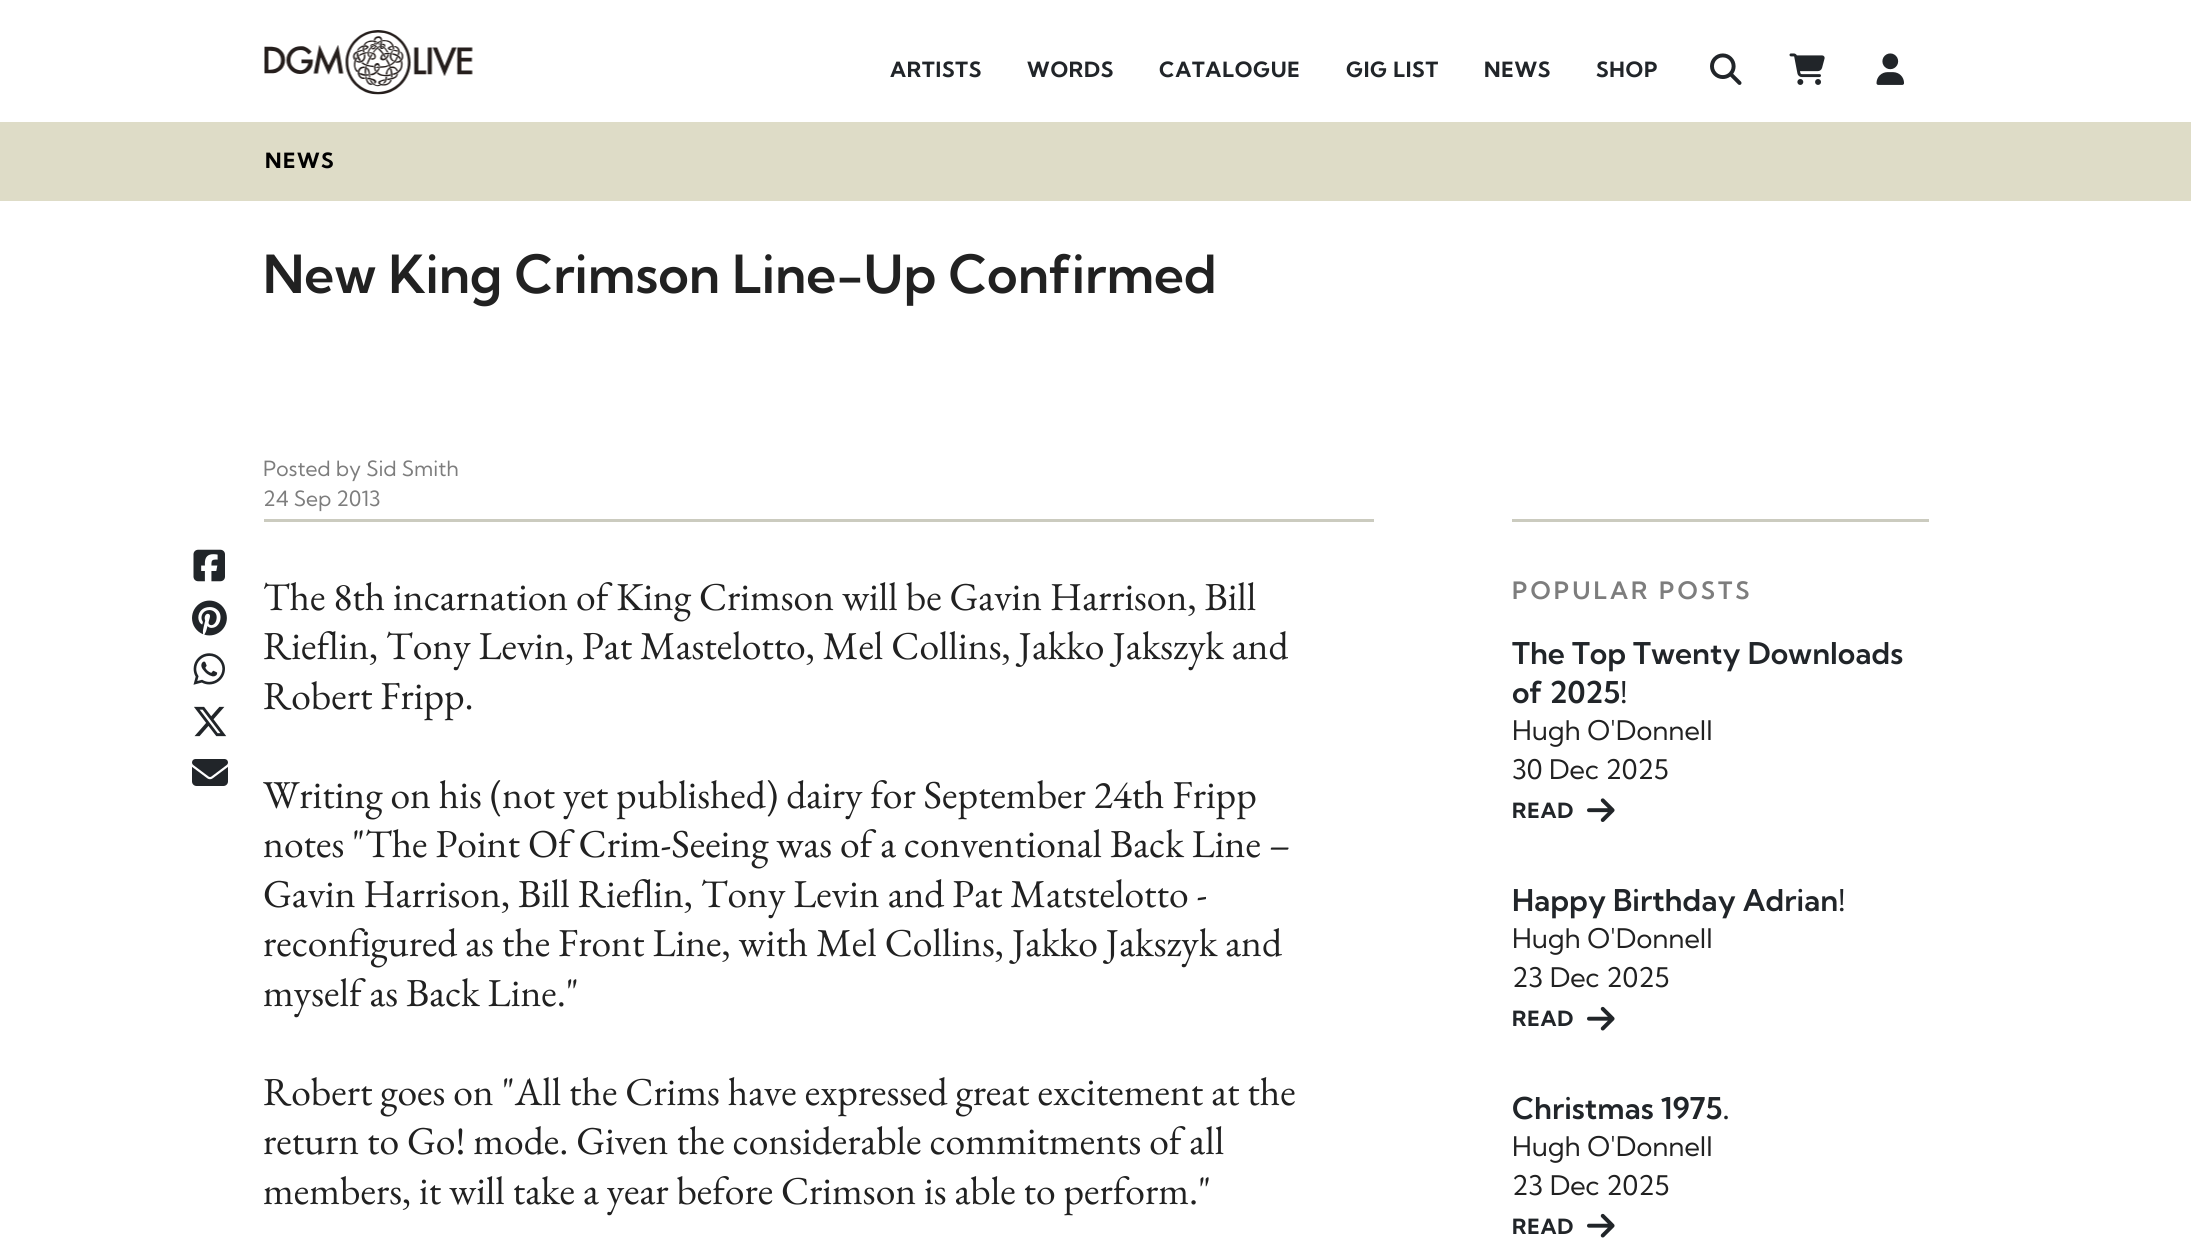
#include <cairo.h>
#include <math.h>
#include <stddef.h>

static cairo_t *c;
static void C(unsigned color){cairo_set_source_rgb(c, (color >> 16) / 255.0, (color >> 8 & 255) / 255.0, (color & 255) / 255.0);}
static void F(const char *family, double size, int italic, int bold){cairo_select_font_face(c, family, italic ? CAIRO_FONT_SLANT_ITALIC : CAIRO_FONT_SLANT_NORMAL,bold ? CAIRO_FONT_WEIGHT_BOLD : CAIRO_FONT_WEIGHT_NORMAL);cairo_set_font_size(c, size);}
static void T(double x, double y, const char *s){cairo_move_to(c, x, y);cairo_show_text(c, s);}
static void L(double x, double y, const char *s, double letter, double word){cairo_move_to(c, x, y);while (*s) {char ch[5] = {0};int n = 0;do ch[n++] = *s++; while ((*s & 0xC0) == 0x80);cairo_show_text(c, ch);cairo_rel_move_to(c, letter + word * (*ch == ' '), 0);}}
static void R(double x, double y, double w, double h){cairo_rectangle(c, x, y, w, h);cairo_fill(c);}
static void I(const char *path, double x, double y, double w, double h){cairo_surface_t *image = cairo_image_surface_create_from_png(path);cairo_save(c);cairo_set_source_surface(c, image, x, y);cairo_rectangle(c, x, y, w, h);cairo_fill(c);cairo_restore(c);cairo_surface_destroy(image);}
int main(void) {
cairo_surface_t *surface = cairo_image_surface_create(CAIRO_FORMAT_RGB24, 2191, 1253);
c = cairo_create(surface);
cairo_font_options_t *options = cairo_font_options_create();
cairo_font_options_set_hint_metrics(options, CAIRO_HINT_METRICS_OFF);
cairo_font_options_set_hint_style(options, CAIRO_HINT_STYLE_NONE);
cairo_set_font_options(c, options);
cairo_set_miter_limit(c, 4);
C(0xffffff);
cairo_paint(c);
I("1.png",264,30,209,65);
F("Kumbh Sans",21,0,1);
C(0x212529);
L(890,77,"ARTISTS",.75,0);
L(1027,77,"WORDS",.75,0);
L(1159,77,"CATALOGUE",.75,0);
L(1346,77,"GIG LIST",.75,0);
L(1484,77,"NEWS",.75,0);
L(1596,77,"SHOP",.75,0);
I("2.png",1710,53,32,32);
I("3.png",1789,53,36,32);
I("4.png",1876,53,28,32);
C(0xdedcc7);
R(0,122,2191,79);
C(0x000000);
L(265,168,"NEWS",1.5,0);
F("Kumbh Sans SemiBold",52.5,0,0);
C(0x212121);
T(263,293,"New King Crimson Line-Up Confirmed");
F("Kumbh Sans",21,0,0);
C(0x7d7d7d);
T(263,476,"Posted by Sid Smith");
T(263,506,"24 Sep 2013");
C(0xcbcbbf);
R(264,519,1110,3);
I("5.png",193,549,32,33);
I("6.png",192,600,35,36);
I("7.png",193,653,32,32);
I("8.png",194,706,33,31);
I("9.png",192,759,36,27);
F("EB Garamond",39.6,0,0);
C(0x212121);
T(263,610,"The 8th incarnation of King Crimson will be Gavin Harrison, Bill");
T(263,659,"Rieflin, Tony Levin, Pat Mastelotto, Mel Collins, Jakko Jakszyk and");
T(263,709,"Robert Fripp.");
T(263,808,"Writing on his (not yet published) dairy for September 24th Fripp");
T(263,857,"notes \"The Point Of Crim-Seeing was of a conventional Back Line –");
T(263,907,"Gavin Harrison, Bill Rieflin, Tony Levin and Pat Matstelotto -");
T(263,956,"reconfigured as the Front Line, with Mel Collins, Jakko Jakszyk and");
T(263,1006,"myself as Back Line.\"");
T(263,1105,"Robert goes on \"All the Crims have expressed great excitement at the");
T(263,1154,"return to Go! mode. Given the considerable commitments of all");
T(263,1204,"members, it will take a year before Crimson is able to perform.\"");
C(0xcbcbbf);
R(1512,519,417,3);
F("Kumbh Sans SemiBold",24,0,0);
C(0x7d7d7d);
L(1512,599,"POPULAR POSTS",3,0);
F("Kumbh Sans SemiBold",30,0,0);
C(0x212529);
T(1512,664,"The Top Twenty Downloads");
T(1512,703,"of 2025!");
F("Kumbh Sans",27,0,0);
C(0x212121);
T(1512,740,"Hugh O'Donnell");
T(1512,779,"30 Dec 2025");
F("Kumbh Sans",21,0,1);
C(0x212529);
L(1512,818,"READ",.75,0);
I("10.png",1587,798,28,24);
F("Kumbh Sans SemiBold",30,0,0);
T(1512,911,"Happy Birthday Adrian!");
F("Kumbh Sans",27,0,0);
C(0x212121);
T(1512,948,"Hugh O'Donnell");
T(1512,987,"23 Dec 2025");
F("Kumbh Sans",21,0,1);
C(0x212529);
L(1512,1026,"READ",.75,0);
I("11.png",1587,1006,28,25);
F("Kumbh Sans SemiBold",30,0,0);
T(1512,1119,"Christmas 1975.");
F("Kumbh Sans",27,0,0);
C(0x212121);
T(1512,1156,"Hugh O'Donnell");
T(1512,1195,"23 Dec 2025");
F("Kumbh Sans",21,0,1);
C(0x212529);
L(1512,1234,"READ",.75,0);
I("11.png",1587,1213,28,25);
cairo_surface_write_to_png(surface, "o.png");
cairo_font_options_destroy(options);
cairo_destroy(c);
cairo_surface_destroy(surface);
return 0;
}
